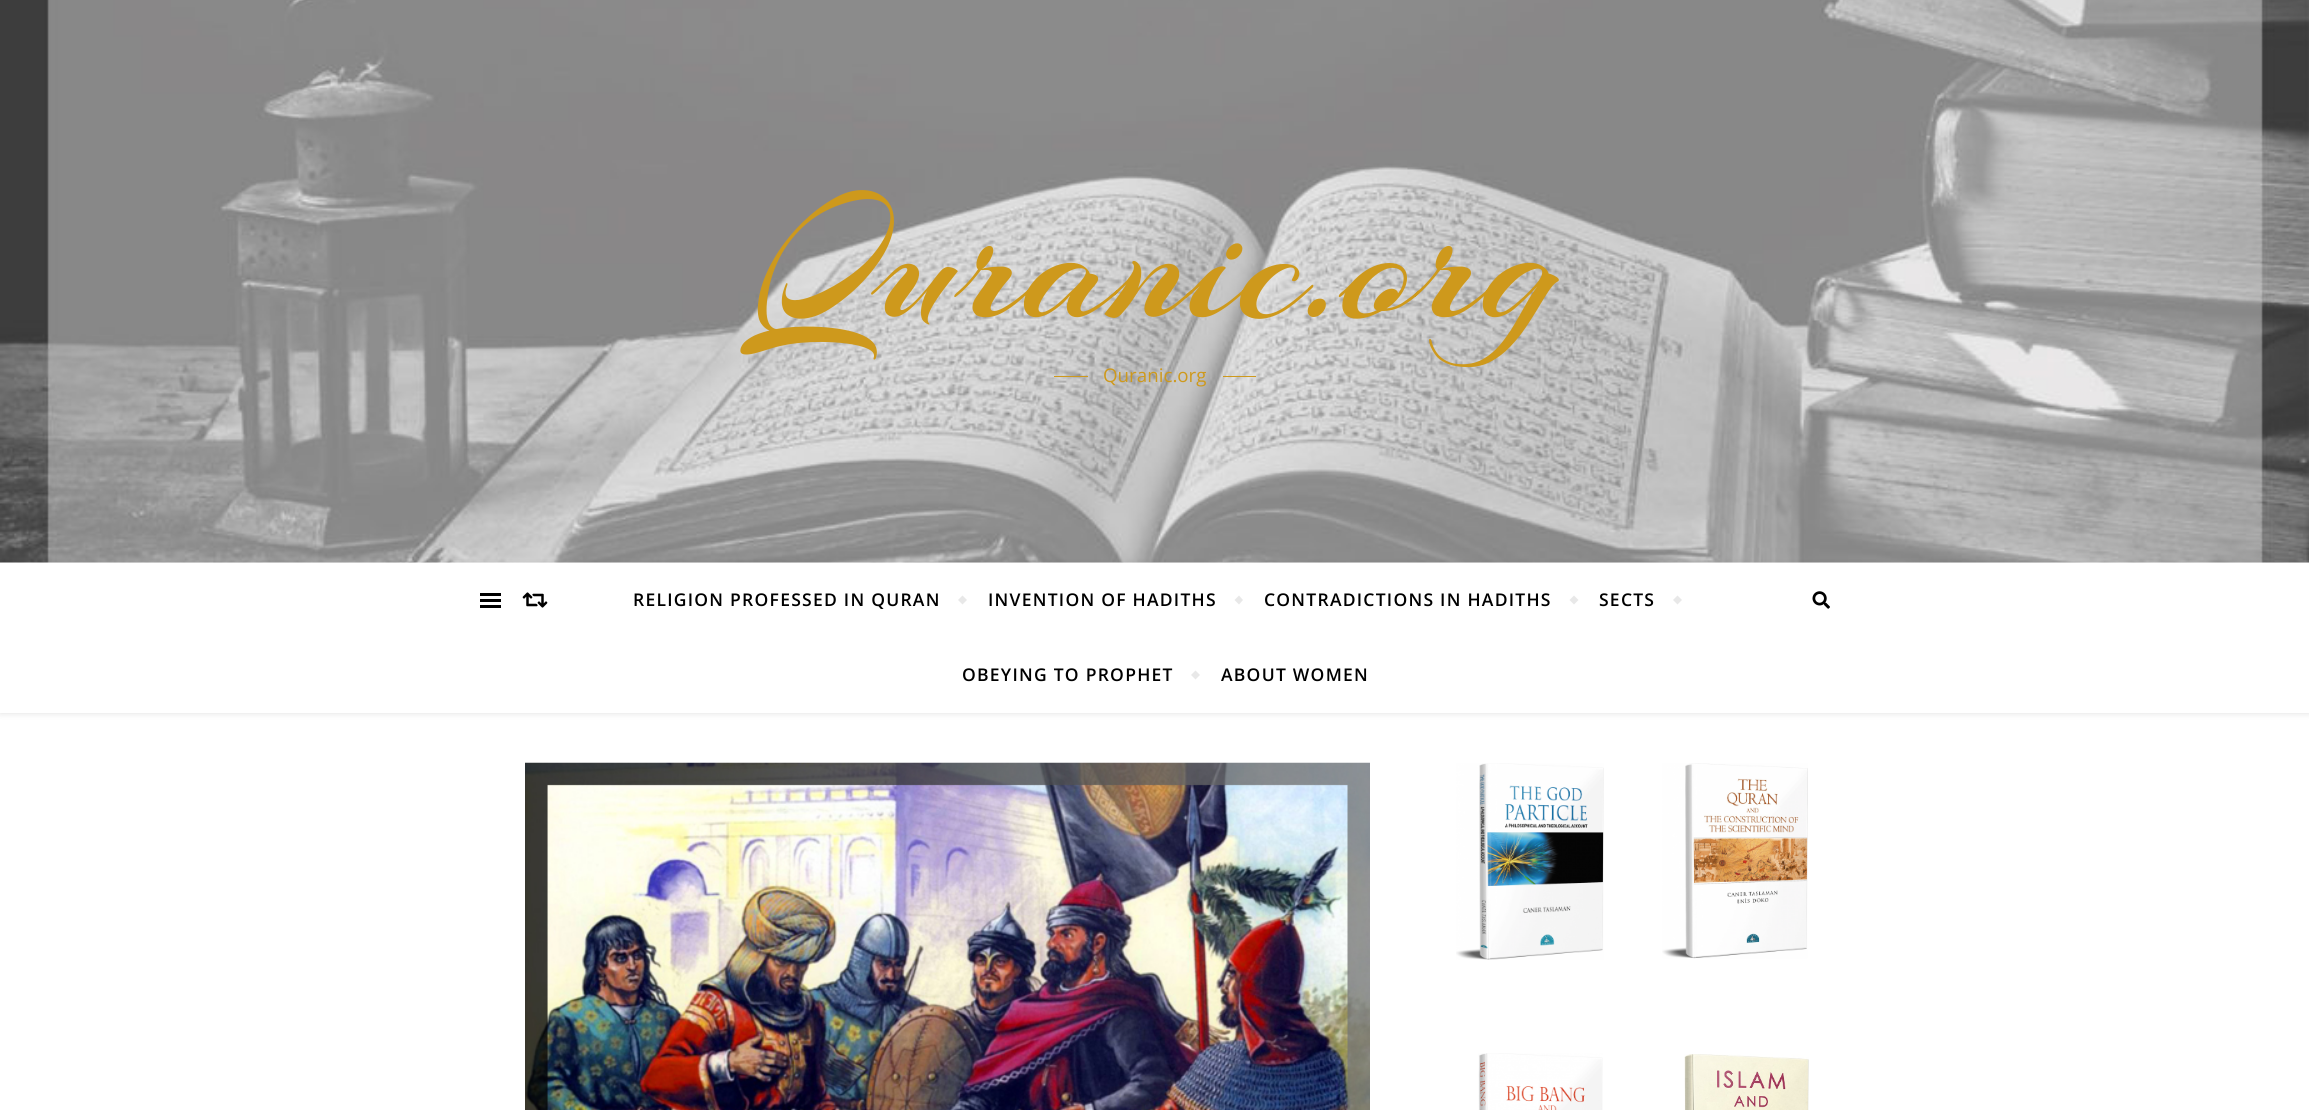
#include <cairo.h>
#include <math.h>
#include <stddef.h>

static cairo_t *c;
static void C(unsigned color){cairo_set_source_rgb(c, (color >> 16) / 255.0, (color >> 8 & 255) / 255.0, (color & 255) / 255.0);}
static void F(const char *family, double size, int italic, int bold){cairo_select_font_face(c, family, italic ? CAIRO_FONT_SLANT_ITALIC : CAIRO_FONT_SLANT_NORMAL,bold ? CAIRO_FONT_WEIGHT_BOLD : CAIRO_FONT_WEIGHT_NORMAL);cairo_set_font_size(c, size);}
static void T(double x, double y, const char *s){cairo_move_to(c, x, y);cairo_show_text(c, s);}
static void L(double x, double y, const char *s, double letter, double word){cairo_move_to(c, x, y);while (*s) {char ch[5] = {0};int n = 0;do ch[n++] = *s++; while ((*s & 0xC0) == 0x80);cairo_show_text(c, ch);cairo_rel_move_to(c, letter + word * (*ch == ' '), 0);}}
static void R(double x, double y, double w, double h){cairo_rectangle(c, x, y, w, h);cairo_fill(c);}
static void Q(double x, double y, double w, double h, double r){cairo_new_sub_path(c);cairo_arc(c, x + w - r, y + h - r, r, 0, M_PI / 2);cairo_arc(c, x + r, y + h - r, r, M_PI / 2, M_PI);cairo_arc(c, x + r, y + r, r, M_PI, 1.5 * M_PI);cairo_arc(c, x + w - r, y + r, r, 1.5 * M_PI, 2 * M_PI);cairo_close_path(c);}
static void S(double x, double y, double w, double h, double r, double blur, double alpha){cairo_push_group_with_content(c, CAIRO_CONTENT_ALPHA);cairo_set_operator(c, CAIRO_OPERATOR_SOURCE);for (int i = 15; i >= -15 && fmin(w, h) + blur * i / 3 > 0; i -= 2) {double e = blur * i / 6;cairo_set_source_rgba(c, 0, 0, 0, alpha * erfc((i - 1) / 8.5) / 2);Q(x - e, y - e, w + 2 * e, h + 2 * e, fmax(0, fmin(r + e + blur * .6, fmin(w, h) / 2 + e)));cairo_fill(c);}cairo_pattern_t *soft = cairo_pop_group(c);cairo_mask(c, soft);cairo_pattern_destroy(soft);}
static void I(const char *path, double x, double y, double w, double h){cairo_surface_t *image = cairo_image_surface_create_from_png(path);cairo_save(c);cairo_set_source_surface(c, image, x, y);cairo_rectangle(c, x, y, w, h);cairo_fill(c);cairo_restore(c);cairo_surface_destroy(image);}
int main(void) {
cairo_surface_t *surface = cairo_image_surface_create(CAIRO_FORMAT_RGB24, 2309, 1110);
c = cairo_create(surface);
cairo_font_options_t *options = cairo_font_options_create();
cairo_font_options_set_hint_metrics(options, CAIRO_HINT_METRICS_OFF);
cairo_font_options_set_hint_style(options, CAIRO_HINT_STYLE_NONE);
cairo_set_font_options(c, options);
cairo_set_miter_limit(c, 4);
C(0xffffff);
cairo_paint(c);
I("1.png",0,0,2309,563);
F("Arizonia",187.5,0,0);
C(0xce991c);
T(749,317,"Quranic.org");
R(1054,376,34,1);
F("Open Sans",18.75,0,0);
T(1103,382,"Quranic.org");
R(1223,376,33,1);
C(0x000000);
S(0,564,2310,150,0,3,.1);
C(0xffffff);
R(0,563,2309,150);
C(0x000000);
R(480,593,21,3);
R(480,599,21,3);
R(480,605,21,3);
I("2.png",522,592,26,16);
F("Open Sans SemiBold",17.5,0,0);
L(633,606,"RELIGION PROFESSED IN QURAN",1.25,0);
C(0xe8e8e8);
cairo_new_path(c);
cairo_move_to(c,958,600);
cairo_line_to(c,962.5,595.5);
cairo_line_to(c,967,600);
cairo_line_to(c,962.5,604.5);
cairo_close_path(c);
cairo_fill(c);
C(0x000000);
L(988,606,"INVENTION OF HADITHS",1.25,0);
C(0xe8e8e8);
cairo_new_path(c);
cairo_move_to(c,1234.5,600);
cairo_line_to(c,1239,595.5);
cairo_line_to(c,1243,600);
cairo_line_to(c,1239,604.5);
cairo_close_path(c);
cairo_fill(c);
C(0x000000);
L(1264,606,"CONTRADICTIONS IN HADITHS",1.25,0);
C(0xe8e8e8);
cairo_new_path(c);
cairo_move_to(c,1569.5,600);
cairo_line_to(c,1574,595.5);
cairo_line_to(c,1578.5,600);
cairo_line_to(c,1574,604.5);
cairo_close_path(c);
cairo_fill(c);
C(0x000000);
L(1599,606,"SECTS",1.25,0);
C(0xe8e8e8);
cairo_new_path(c);
cairo_move_to(c,1673,600);
cairo_line_to(c,1677.5,595.5);
cairo_line_to(c,1682,600);
cairo_line_to(c,1677.5,604.5);
cairo_close_path(c);
cairo_fill(c);
C(0x000000);
L(962,681,"OBEYING TO PROPHET",1.25,0);
C(0xe8e8e8);
cairo_new_path(c);
cairo_move_to(c,1191,675);
cairo_line_to(c,1195.5,670.5);
cairo_line_to(c,1200,675);
cairo_line_to(c,1195.5,679.5);
cairo_close_path(c);
cairo_fill(c);
C(0x000000);
L(1221,681,"ABOUT WOMEN",1.25,0);
I("3.png",1812,591,18,18);
I("4.png",525,762,845,348);
I("5.png",1456,763,148,197);
I("6.png",1662,763,146,196);
I("7.png",1478,1053,125,57);
I("8.png",1684,1054,125,56);
cairo_surface_write_to_png(surface, "o.png");
cairo_font_options_destroy(options);
cairo_destroy(c);
cairo_surface_destroy(surface);
return 0;
}
